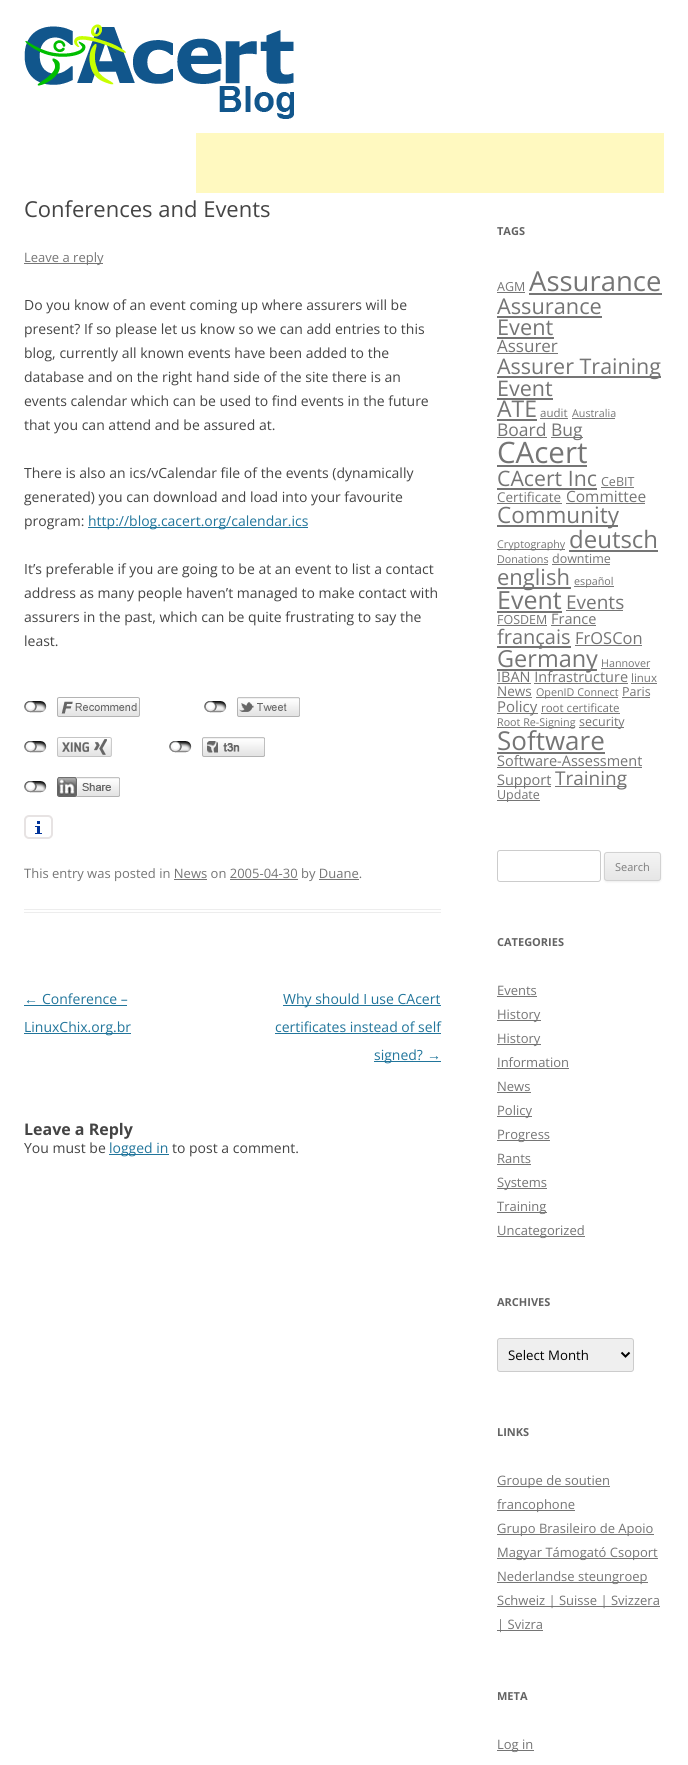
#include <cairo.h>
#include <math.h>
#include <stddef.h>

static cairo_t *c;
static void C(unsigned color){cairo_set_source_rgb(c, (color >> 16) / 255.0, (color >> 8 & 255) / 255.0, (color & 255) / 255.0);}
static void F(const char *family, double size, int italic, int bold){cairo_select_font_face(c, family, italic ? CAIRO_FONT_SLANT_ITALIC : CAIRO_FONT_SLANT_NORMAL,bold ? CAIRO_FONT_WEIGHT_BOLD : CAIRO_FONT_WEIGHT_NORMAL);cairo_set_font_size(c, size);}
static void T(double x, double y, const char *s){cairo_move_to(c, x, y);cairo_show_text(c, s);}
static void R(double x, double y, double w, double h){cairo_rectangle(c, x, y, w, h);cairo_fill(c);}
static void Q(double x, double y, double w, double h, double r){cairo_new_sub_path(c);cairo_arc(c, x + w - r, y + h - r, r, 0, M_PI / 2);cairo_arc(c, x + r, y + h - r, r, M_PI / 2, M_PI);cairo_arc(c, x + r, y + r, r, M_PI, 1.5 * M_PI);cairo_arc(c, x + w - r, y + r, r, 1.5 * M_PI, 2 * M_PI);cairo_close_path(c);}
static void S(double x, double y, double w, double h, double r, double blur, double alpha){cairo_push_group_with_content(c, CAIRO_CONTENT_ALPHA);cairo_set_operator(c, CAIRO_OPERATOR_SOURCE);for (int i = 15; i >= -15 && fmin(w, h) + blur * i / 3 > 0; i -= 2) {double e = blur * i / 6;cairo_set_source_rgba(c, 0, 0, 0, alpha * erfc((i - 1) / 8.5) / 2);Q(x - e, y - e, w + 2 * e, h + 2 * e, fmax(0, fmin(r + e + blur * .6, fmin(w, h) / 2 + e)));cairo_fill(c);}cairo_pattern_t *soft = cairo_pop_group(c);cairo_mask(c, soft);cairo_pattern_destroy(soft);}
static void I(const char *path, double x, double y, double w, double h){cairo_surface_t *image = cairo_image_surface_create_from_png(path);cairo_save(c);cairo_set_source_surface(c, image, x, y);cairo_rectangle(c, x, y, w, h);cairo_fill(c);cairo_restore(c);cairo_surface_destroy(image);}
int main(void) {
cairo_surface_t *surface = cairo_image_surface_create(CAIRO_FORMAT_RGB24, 688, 1765);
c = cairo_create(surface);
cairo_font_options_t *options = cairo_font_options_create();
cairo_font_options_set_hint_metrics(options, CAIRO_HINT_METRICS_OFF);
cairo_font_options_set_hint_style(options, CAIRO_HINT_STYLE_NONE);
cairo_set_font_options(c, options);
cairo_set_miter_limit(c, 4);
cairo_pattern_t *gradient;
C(0xffffff);
cairo_paint(c);
I("1.png",24,24,270,95);
C(0xfff9c0);
R(196,133,468,60);
C(0xededed);
R(24,909,417,1);
R(24,912,417,1);
F("Open Sans",22,0,0);
C(0x444444);
T(24,217,"Conferences and Events");
C(0x757575);
R(24,263,79,1);
F("Open Sans",13,0,0);
T(24,262,"Leave a reply");
F("Open Sans",14,0,0);
C(0x444444);
T(24,310,"Do you know of an event coming up where assurers will be");
T(24,334,"present? If so please let us know so we can add entries to this");
T(24,358,"blog, currently all known events have been added to the");
T(24,382,"database and on the right hand side of the site there is an");
T(24,406,"events calendar which can be used to find events in the future");
T(24,430,"that you can attend and be assured at.");
T(24,478,"There is also an ics/vCalendar file of the events (dynamically");
T(24,502,"generated) you can download and load into your favourite");
T(24,526,"program:");
C(0x21759b);
R(88,527,220,1);
T(88,526,"http://blog.cacert.org/calendar.ics");
C(0x444444);
T(24,574,"It’s preferable if you are going to be at an event to list a contact");
T(24,598,"address as many people haven’t managed to make contact with");
T(24,622,"assurers in the past, which can be quite frustrating to say the");
T(24,646,"least.");
I("2.png",24,701,23,12);
I("3.png",57,697,83,20);
I("2.png",204,701,23,12);
I("4.png",237,697,63,20);
I("2.png",24,741,23,12);
I("5.png",57,737,55,20);
I("2.png",169,741,23,12);
I("6.png",202,737,63,20);
I("2.png",24,781,23,12);
I("7.png",57,777,63,20);
I("8.png",35,821,7,13);
Q(25,816,27,22,4);
C(0xe7e3e3);
cairo_stroke(c);
F("Open Sans",13,0,0);
C(0x757575);
T(24,878,"This entry was posted in News on 2005-04-30 by Duane.");
R(174,879,33,1);
R(230,879,68,1);
R(319,879,40,1);
F("Liberation Sans",14,0,0);
C(0x21759b);
T(24,1004,"←");
R(24,1005,103,1);
F("Open Sans",14,0,0);
T(42,1004,"Conference –");
R(24,1033,107,1);
T(24,1032,"LinuxChix.org.br");
R(283,1005,158,1);
T(283,1004,"Why should I use CAcert");
T(275,1032,"certificates instead of self");
R(275,1033,166,1);
R(374,1061,67,1);
T(374,1060,"signed?");
F("Liberation Sans",14,0,0);
T(427,1060,"→");
F("Open Sans",16,0,1);
C(0x444444);
T(24,1135,"Leave a Reply");
F("Open Sans",14,0,0);
T(24,1153,"You must be");
C(0x21759b);
R(109,1154,60,1);
T(109,1153,"logged in");
C(0x444444);
T(172,1153,"to post a comment.");
F("Open Sans",11,0,1);
C(0x636363);
T(497,235,"TAGS");
F("Open Sans",12.5,0,0);
C(0x757575);
T(497,291,"AGM");
R(497,292,28,1);
F("Open Sans",27.5,0,0);
T(529,291,"Assurance");
R(529,293,133,2);
F("Open Sans",21.75,0,0);
T(497,314,"Assurance");
R(497,316,105,2);
T(497,335,"Event");
R(497,337,57,2);
F("Open Sans",17,0,0);
T(497,352,"Assurer");
R(497,353,61,1);
R(497,376,164,2);
F("Open Sans",21.5,0,0);
T(497,374,"Assurer Training");
T(497,396,"Event");
R(497,398,56,2);
F("Open Sans",23,0,0);
T(497,417,"ATE");
R(497,419,40,2);
F("Open Sans",11.5,0,0);
T(540,417,"audit");
R(540,418,28,1);
F("Open Sans",10.75,0,0);
T(572,417,"Australia");
R(572,418,43,1);
F("Open Sans",17.5,0,0);
T(497,436,"Board");
R(497,437,50,1);
R(551,437,32,1);
T(551,436,"Bug");
F("Open Sans",29.5,0,0);
T(497,463,"CAcert");
R(497,465,90,2);
F("Open Sans",21.25,0,0);
T(497,486,"CAcert Inc");
R(497,488,100,2);
F("Open Sans",12.5,0,0);
T(601,486,"CeBIT");
R(601,487,33,1);
F("Open Sans",13.5,0,0);
T(497,502,"Certificate");
R(497,503,65,1);
F("Open Sans",15.5,0,0);
T(566,502,"Committee");
R(566,503,79,1);
R(497,525,121,2);
F("Open Sans",22.5,0,0);
T(497,523,"Community");
R(497,549,68,1);
F("Open Sans",10.75,0,0);
T(497,548,"Cryptography");
F("Open Sans",24,0,0);
T(569,548,"deutsch");
R(569,550,89,2);
F("Open Sans",10.75,0,0);
T(497,563,"Donations");
R(497,564,51,1);
F("Open Sans",12.5,0,0);
T(552,563,"downtime");
R(552,564,58,1);
R(497,587,74,2);
F("Open Sans",22,0,0);
T(497,585,"english");
R(574,586,40,1);
F("Open Sans",10.75,0,0);
T(574,585,"español");
F("Open Sans",25,0,0);
T(497,609,"Event");
R(497,611,65,2);
F("Open Sans",19,0,0);
T(566,609,"Events");
R(566,610,57,1);
F("Open Sans",12.5,0,0);
T(497,624,"FOSDEM");
R(497,625,50,1);
F("Open Sans",14.5,0,0);
T(551,624,"France");
R(551,625,45,1);
R(497,646,74,2);
F("Open Sans",20,0,0);
T(497,644,"français");
F("Open Sans",16.5,0,0);
T(575,644,"FrOSCon");
R(575,645,67,1);
R(497,669,100,2);
F("Open Sans",23.5,0,0);
T(497,667,"Germany");
F("Open Sans",10.75,0,0);
T(601,667,"Hannover");
R(601,668,49,1);
F("Open Sans",14.5,0,0);
T(497,682,"IBAN Infrastructure");
R(497,683,34,1);
F("Open Sans",11.5,0,0);
T(631,682,"linux");
R(631,683,26,1);
R(534,683,94,1);
F("Open Sans",13.5,0,0);
T(497,696,"News");
R(497,697,35,1);
R(536,697,82,1);
F("Open Sans",10.75,0,0);
T(536,696,"OpenID Connect");
F("Open Sans",12.5,0,0);
T(622,696,"Paris");
R(622,697,28,1);
R(497,713,41,1);
F("Open Sans",15,0,0);
T(497,712,"Policy");
F("Open Sans",11.5,0,0);
T(541,712,"root certificate");
R(541,713,79,1);
R(497,727,78,1);
F("Open Sans",10.75,0,0);
T(497,726,"Root Re-Signing");
R(579,727,45,1);
F("Open Sans",12.5,0,0);
T(579,726,"security");
F("Open Sans",26,0,0);
T(497,750,"Software");
R(497,752,108,2);
F("Open Sans",14.5,0,0);
T(497,766,"Software-Assessment");
R(497,767,145,1);
R(497,786,54,1);
T(497,785,"Support");
R(555,786,71,1);
F("Open Sans",19,0,0);
T(555,785,"Training");
R(497,800,43,1);
F("Open Sans",12.5,0,0);
T(497,799,"Update");
Q(497.5,850.5,103,31,2.5);
C(0xcccccc);
cairo_set_line_width(c,1);
cairo_stroke(c);
C(0x404040);
S(604,853,57,29,3,1,.1);
cairo_save(c);
Q(604,852,57,29,3);
cairo_clip(c);
gradient = cairo_pattern_create_linear(633,853,633,880);
cairo_pattern_add_color_stop_rgba(gradient,0,0.957,0.957,0.957,1);
cairo_pattern_add_color_stop_rgba(gradient,1,0.902,0.902,0.902,1);
cairo_set_source(c,gradient);
cairo_pattern_destroy(gradient);
R(604,853,57,27);
cairo_restore(c);
Q(604.5,852.5,56,28,2.5);
C(0xd2d2d2);
cairo_stroke(c);
F("Open Sans",11,0,0);
C(0x7c7c7c);
T(615,871,"Search");
F("Open Sans",11,0,1);
C(0x636363);
T(497,946,"CATEGORIES");
F("Open Sans",13,0,0);
C(0x757575);
T(497,995,"Events");
R(497,996,40,1);
R(497,1020,44,1);
T(497,1019,"History");
R(497,1044,44,1);
T(497,1043,"History");
T(497,1067,"Information");
R(497,1068,72,1);
T(497,1091,"News");
R(497,1092,34,1);
R(497,1116,35,1);
T(497,1115,"Policy");
R(497,1140,53,1);
T(497,1139,"Progress");
T(497,1163,"Rants");
R(497,1164,34,1);
R(497,1188,50,1);
T(497,1187,"Systems");
R(497,1212,50,1);
T(497,1211,"Training");
R(497,1236,88,1);
T(497,1235,"Uncategorized");
F("Open Sans",11,0,1);
C(0x636363);
T(497,1306,"ARCHIVES");
C(0xefefef);
Q(497.5,1338.5,136,33,2.5);
cairo_fill_preserve(c);
C(0xcccccc);
cairo_stroke(c);
cairo_new_path(c);
cairo_move_to(c,621.5,1352.5);
cairo_line_to(c,625.5,1356.5);
cairo_line_to(c,629.5,1352.5);
C(0x000000);
cairo_set_line_width(c,2);
cairo_stroke(c);
F("Open Sans",13.25,0,0);
T(508,1360,"Select Month");
F("Open Sans",11,0,1);
C(0x636363);
T(497,1436,"LINKS");
C(0x757575);
R(497,1486,113,1);
F("Open Sans",13,0,0);
T(497,1485,"Groupe de soutien");
R(497,1510,78,1);
T(497,1509,"francophone");
R(497,1534,157,1);
T(497,1533,"Grupo Brasileiro de Apoio");
R(497,1558,161,1);
T(497,1557,"Magyar Támogató Csoport");
R(497,1582,151,1);
T(497,1581,"Nederlandse steungroep");
R(497,1606,163,1);
T(497,1605,"Schweiz | Suisse | Svizzera");
R(497,1630,46,1);
T(497,1629,"| Svizra");
F("Open Sans",11,0,1);
C(0x636363);
T(497,1700,"META");
C(0x757575);
R(497,1750,37,1);
F("Open Sans",13,0,0);
T(497,1749,"Log in");
cairo_surface_write_to_png(surface, "o.png");
cairo_font_options_destroy(options);
cairo_destroy(c);
cairo_surface_destroy(surface);
return 0;
}
